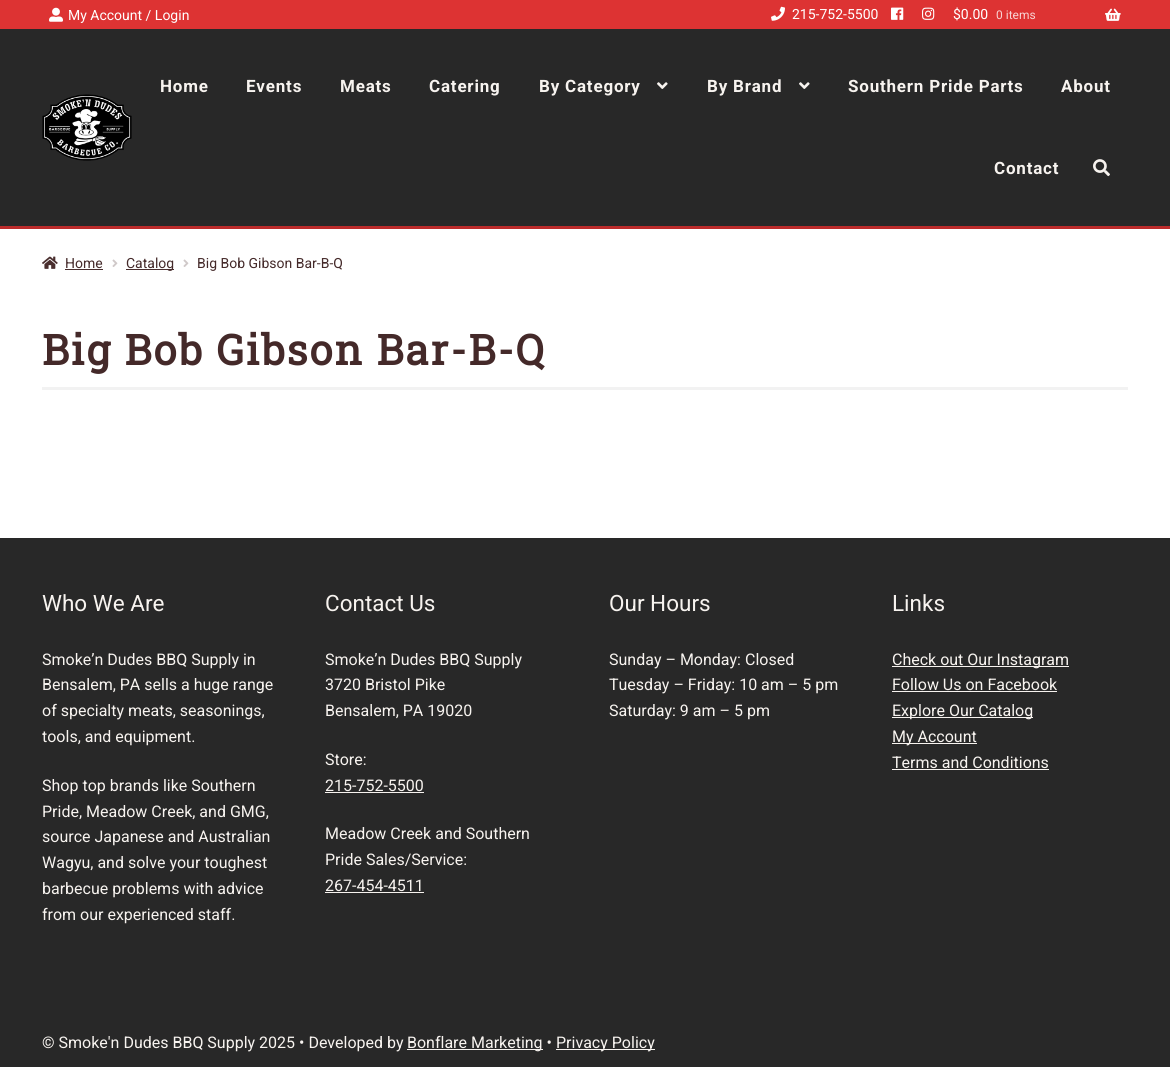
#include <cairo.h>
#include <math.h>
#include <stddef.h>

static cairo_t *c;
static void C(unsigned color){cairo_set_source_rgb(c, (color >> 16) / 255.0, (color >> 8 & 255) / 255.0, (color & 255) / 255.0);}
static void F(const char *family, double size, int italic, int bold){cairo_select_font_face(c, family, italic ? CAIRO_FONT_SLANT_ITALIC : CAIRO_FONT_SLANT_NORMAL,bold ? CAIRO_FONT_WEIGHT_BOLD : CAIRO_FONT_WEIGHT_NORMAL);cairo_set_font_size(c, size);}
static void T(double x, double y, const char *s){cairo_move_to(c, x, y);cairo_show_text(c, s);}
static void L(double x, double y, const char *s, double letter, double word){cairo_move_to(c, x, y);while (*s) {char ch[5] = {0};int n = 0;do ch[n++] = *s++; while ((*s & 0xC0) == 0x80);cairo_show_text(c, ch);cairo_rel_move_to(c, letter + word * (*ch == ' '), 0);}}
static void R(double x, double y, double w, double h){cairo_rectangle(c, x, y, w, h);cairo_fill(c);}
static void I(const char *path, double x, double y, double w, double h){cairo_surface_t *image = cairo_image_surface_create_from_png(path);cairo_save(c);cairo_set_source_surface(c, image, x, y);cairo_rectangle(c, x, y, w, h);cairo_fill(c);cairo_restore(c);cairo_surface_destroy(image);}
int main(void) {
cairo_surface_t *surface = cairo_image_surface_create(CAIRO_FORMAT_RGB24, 1170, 1067);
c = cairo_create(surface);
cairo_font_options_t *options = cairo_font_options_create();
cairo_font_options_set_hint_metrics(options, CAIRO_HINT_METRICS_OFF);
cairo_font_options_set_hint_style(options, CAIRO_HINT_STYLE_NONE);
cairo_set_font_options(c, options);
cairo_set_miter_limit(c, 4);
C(0xffffff);
cairo_paint(c);
C(0xdd3333);
R(0,0,1170,29);
I("1.png",49,7,14,15);
F("Roboto",14,0,0);
C(0xffffff);
T(68,20,"My Account / Login");
I("2.png",771,6,14,15);
T(792,19,"215-752-5500");
I("3.png",891,7,13,13);
I("4.png",922,7,13,13);
T(953,19,"$0.00");
F("Roboto",12,0,0);
C(0xf8d4d4);
T(996,19,"0 items");
I("5.png",1105,8,16,13);
C(0x282828);
R(0,29,1170,197);
I("6.png",42,94,90,67);
F("Roboto",17,0,1);
C(0xf7f3ef);
L(160,92,"Home",.8,0);
L(246,92,"Events",.8,0);
L(340,92,"Meats",.8,0);
L(429,92,"Catering",.8,0);
L(539,92,"By Category",.8,0);
I("7.png",657,82,11,7);
L(707,92,"By Brand",.8,0);
I("7.png",799,82,11,7);
L(848,92,"Southern Pride Parts",.8,0);
L(1061,92,"About",.8,0);
L(994,174,"Contact",.8,0);
I("8.png",1093,159,17,18);
C(0xbc2b2b);
R(0,226,1170,3);
I("9.png",42,256,16,13);
F("Roboto",14,0,0);
C(0x442929);
T(65,268,"Home");
C(0x492e2e);
R(65,269,38,1);
I("10.png",112,259,6,8);
R(126,269,48,1);
C(0x442929);
T(126,268,"Catalog");
I("10.png",183,259,6,8);
T(197,268,"Big Bob Gibson Bar-B-Q");
C(0xf2f2f2);
R(42,387,1086,3);
F("Roboto Slab",41.9,0,1);
C(0x442929);
L(42,365,"Big Bob Gibson Bar-B-Q",2,0);
C(0x282828);
R(0,538,1170,529);
F("Roboto",22.5,0,0);
C(0xf7f3ef);
T(42,611,"Who We Are");
F("Roboto",16,0,0);
T(42,665,"Smoke’n Dudes BBQ Supply in");
T(42,690,"Bensalem, PA sells a huge range");
T(42,716,"of specialty meats, seasonings,");
T(42,742,"tools, and equipment.");
T(42,791,"Shop top brands like Southern");
T(42,817,"Pride, Meadow Creek, and GMG,");
T(42,842,"source Japanese and Australian");
T(42,868,"Wagyu, and solve your toughest");
T(42,894,"barbecue problems with advice");
T(42,920,"from our experienced staff.");
F("Roboto",22.5,0,0);
T(325,611,"Contact Us");
F("Roboto",16,0,0);
T(325,665,"Smoke’n Dudes BBQ Supply");
T(325,690,"3720 Bristol Pike");
T(325,716,"Bensalem, PA 19020");
T(325,765,"Store:");
T(325,791,"215-752-5500");
R(325,792,99,1);
T(325,839,"Meadow Creek and Southern");
T(325,865,"Pride Sales/Service:");
T(325,891,"267-454-4511");
R(325,892,99,1);
F("Roboto",22.5,0,0);
T(609,611,"Our Hours");
F("Roboto",16,0,0);
T(609,665,"Sunday – Monday: Closed");
T(609,690,"Tuesday – Friday: 10 am – 5 pm");
T(609,716,"Saturday: 9 am – 5 pm");
F("Roboto",22.5,0,0);
T(892,611,"Links");
R(892,666,177,1);
F("Roboto",16,0,0);
T(892,665,"Check out Our Instagram");
T(892,690,"Follow Us on Facebook");
R(892,691,165,1);
R(892,717,141,1);
T(892,716,"Explore Our Catalog");
R(892,743,85,1);
T(892,742,"My Account");
T(892,768,"Terms and Conditions");
R(892,769,157,1);
T(42,1048,"© Smoke'n Dudes BBQ Supply 2025 • Developed by");
R(407,1049,136,1);
T(407,1048,"Bonflare Marketing •");
R(556,1049,99,1);
T(556,1048,"Privacy Policy");
cairo_surface_write_to_png(surface, "o.png");
cairo_font_options_destroy(options);
cairo_destroy(c);
cairo_surface_destroy(surface);
return 0;
}
